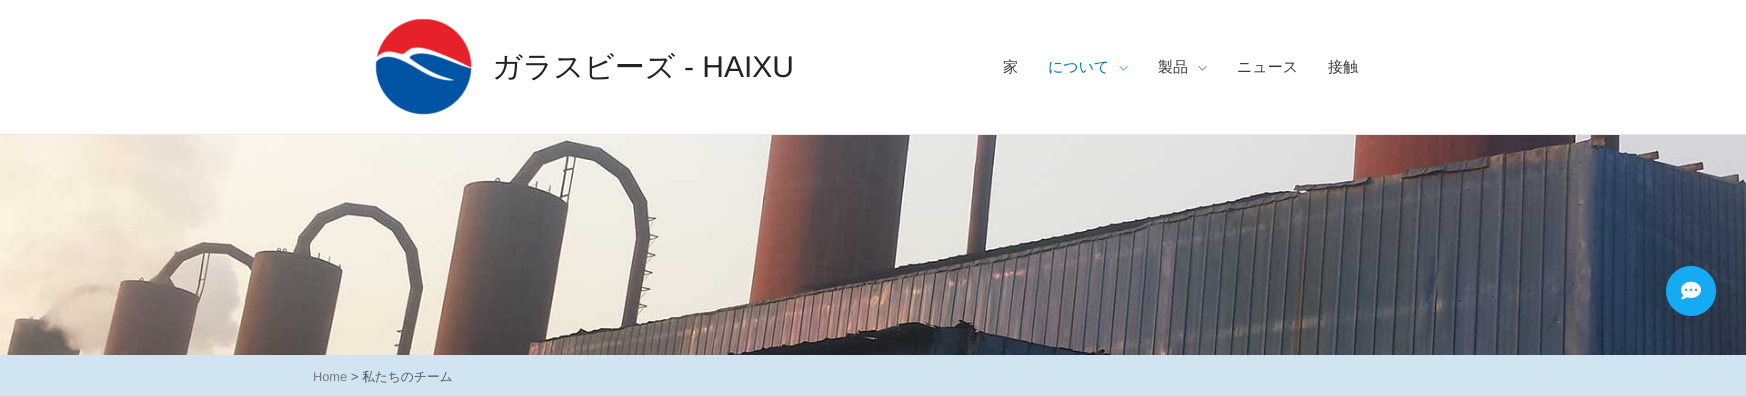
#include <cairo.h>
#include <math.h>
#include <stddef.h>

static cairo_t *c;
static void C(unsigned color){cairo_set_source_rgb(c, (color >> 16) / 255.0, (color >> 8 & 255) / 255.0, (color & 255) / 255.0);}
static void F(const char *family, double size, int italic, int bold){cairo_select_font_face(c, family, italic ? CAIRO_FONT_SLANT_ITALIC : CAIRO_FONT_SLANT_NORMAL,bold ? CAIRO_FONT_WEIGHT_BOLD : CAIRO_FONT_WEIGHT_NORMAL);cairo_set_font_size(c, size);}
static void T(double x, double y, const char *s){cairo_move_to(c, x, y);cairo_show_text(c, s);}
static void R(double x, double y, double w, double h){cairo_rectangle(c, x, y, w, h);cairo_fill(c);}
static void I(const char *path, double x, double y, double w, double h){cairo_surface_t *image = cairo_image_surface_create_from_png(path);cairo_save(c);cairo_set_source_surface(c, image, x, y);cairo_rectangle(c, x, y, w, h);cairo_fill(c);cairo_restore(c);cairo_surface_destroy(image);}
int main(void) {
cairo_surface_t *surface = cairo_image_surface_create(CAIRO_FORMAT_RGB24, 1746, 396);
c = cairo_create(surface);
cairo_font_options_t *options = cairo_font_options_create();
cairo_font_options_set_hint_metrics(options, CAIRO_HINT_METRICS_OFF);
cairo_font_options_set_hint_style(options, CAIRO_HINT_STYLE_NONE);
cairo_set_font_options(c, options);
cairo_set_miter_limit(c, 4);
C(0xffffff);
cairo_paint(c);
C(0xeaeaea);
R(0,134,1746,1);
I("1.png",375,18,97,97);
F("WenQuanYi Zen Hei Medium",30,0,0);
C(0x222222);
T(492,77,"ガラスビーズ");
F("Liberation Sans",30,0,0);
T(684,77,"- HAIXU");
F("WenQuanYi Zen Hei Medium",15,0,0);
C(0x3a3a3a);
T(1003,72,"家");
C(0x0274be);
T(1048,72,"について");
I("2.png",1119,66,9,5);
C(0x3a3a3a);
T(1158,72,"製品");
I("3.png",1198,66,9,5);
T(1237,72,"ニュース");
T(1328,72,"接触");
I("5.png",0,135,1746,220);
C(0x14abf4);
cairo_arc(c,1691,291,25,0,2 * M_PI);
cairo_fill(c);
I("4.png",1681,281,20,19);
C(0xd1e4f1);
R(0,355,1746,41);
F("Liberation Sans",12.75,0,0);
C(0x7a7a7a);
T(313,381,"Home");
C(0x54595f);
T(351,381,">");
F("WenQuanYi Zen Hei Medium",12.75,0,0);
T(362,381,"私たちのチーム");
cairo_surface_write_to_png(surface, "o.png");
cairo_font_options_destroy(options);
cairo_destroy(c);
cairo_surface_destroy(surface);
return 0;
}
